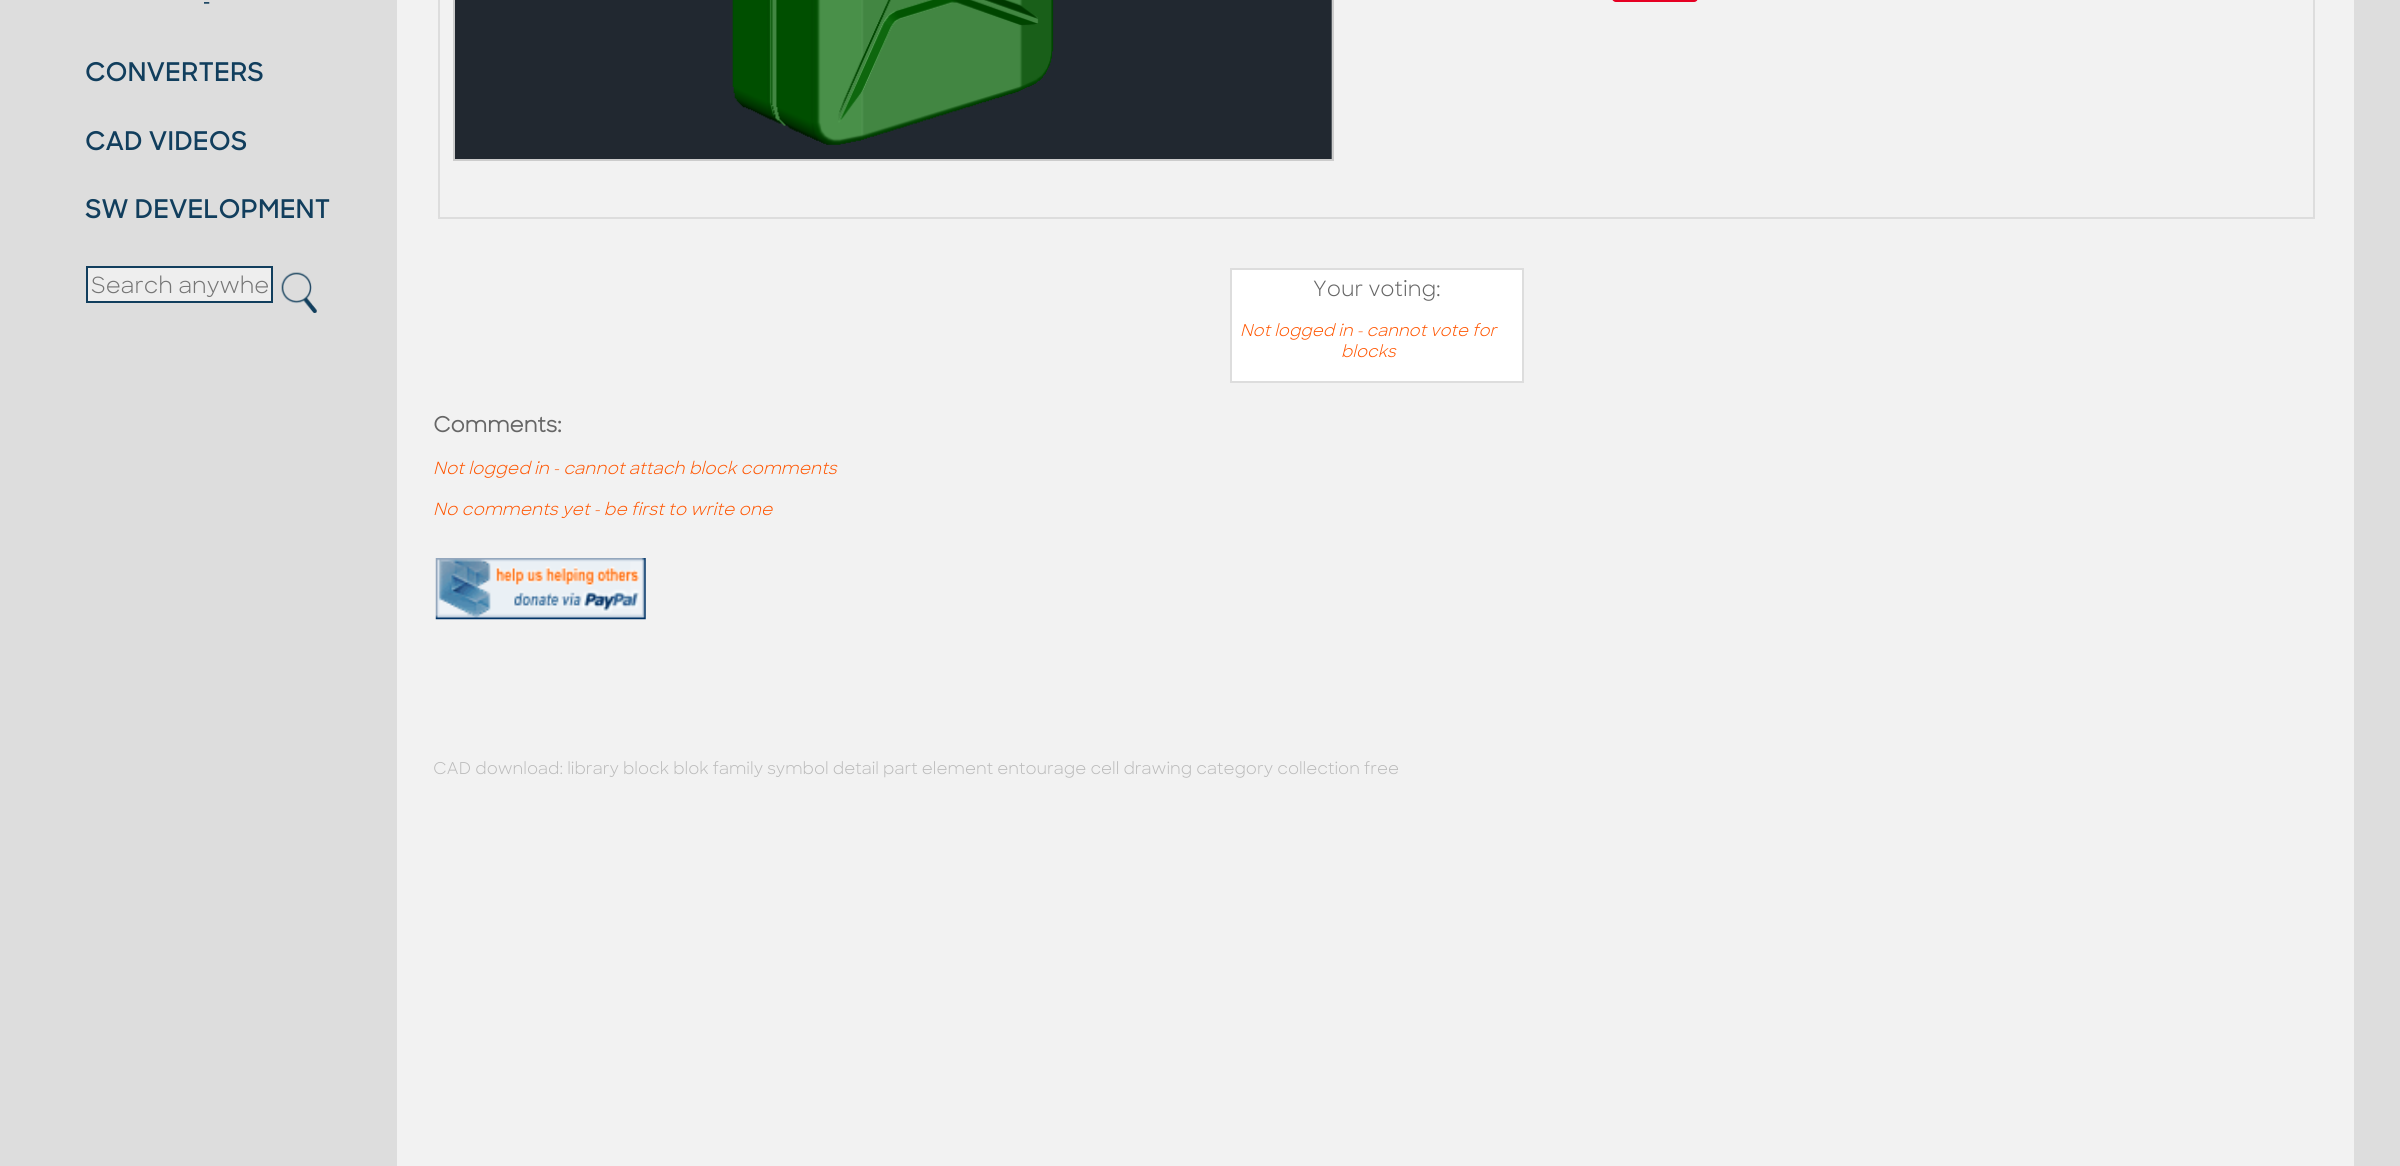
#include <cairo.h>
#include <math.h>
#include <stddef.h>

static cairo_t *c;
static void C(unsigned color){cairo_set_source_rgb(c, (color >> 16) / 255.0, (color >> 8 & 255) / 255.0, (color & 255) / 255.0);}
static void F(const char *family, double size, int italic, int bold){cairo_select_font_face(c, family, italic ? CAIRO_FONT_SLANT_ITALIC : CAIRO_FONT_SLANT_NORMAL,bold ? CAIRO_FONT_WEIGHT_BOLD : CAIRO_FONT_WEIGHT_NORMAL);cairo_set_font_size(c, size);}
static void T(double x, double y, const char *s){cairo_move_to(c, x, y);cairo_show_text(c, s);}
static void R(double x, double y, double w, double h){cairo_rectangle(c, x, y, w, h);cairo_fill(c);}
static void Q(double x, double y, double w, double h, double r){cairo_new_sub_path(c);cairo_arc(c, x + w - r, y + h - r, r, 0, M_PI / 2);cairo_arc(c, x + r, y + h - r, r, M_PI / 2, M_PI);cairo_arc(c, x + r, y + r, r, M_PI, 1.5 * M_PI);cairo_arc(c, x + w - r, y + r, r, 1.5 * M_PI, 2 * M_PI);cairo_close_path(c);}
static void I(const char *path, double x, double y, double w, double h){cairo_surface_t *image = cairo_image_surface_create_from_png(path);cairo_save(c);cairo_set_source_surface(c, image, x, y);cairo_rectangle(c, x, y, w, h);cairo_fill(c);cairo_restore(c);cairo_surface_destroy(image);}
int main(void) {
cairo_surface_t *surface = cairo_image_surface_create(CAIRO_FORMAT_RGB24, 2400, 1166);
c = cairo_create(surface);
cairo_font_options_t *options = cairo_font_options_create();
cairo_font_options_set_hint_metrics(options, CAIRO_HINT_METRICS_OFF);
cairo_font_options_set_hint_style(options, CAIRO_HINT_STYLE_NONE);
cairo_set_font_options(c, options);
cairo_set_miter_limit(c, 4);
C(0xdddddd);
cairo_paint(c);
F("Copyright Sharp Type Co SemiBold",20,0,0);
C(0x113e5d);
T(203,8,"-");
F("Copyright Sharp Type Co SemiBold",25.75,0,0);
T(85,81,"CONVERTERS");
T(85,150,"CAD VIDEOS");
T(85,218,"SW DEVELOPMENT");
C(0xeeeeee);
cairo_rectangle(c,87,267,185,35);
cairo_fill_preserve(c);
C(0x113e5d);
cairo_stroke(c);
F("Copyright Sharp Type Co",22.25,0,0);
C(0x757575);
T(91,293,"Search anywhe");
I("1.png",281,272,36,41);
C(0xf2f2f2);
R(397,0,1957,1166);
cairo_rectangle(c,439,-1,1875,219);
C(0xdddddd);
cairo_stroke(c);
cairo_rectangle(c,454,-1,879,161);
C(0xcccccc);
cairo_stroke(c);
I("2.png",455,0,877,159);
C(0xe60023);
Q(1612,-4,86,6,4);
cairo_fill(c);
C(0xffffff);
cairo_rectangle(c,1231,269,292,113);
cairo_fill_preserve(c);
C(0xdddddd);
cairo_stroke(c);
F("Copyright Sharp Type Co",21,0,0);
C(0x666666);
T(1313,296,"Your voting:");
F("Copyright Sharp Type Co",16.33,1,0);
C(0xff5500);
T(1240,336,"Not logged in - cannot vote for");
T(1341,357,"blocks");
F("Copyright Sharp Type Co",21,0,1);
C(0x666666);
T(433,432,"Comments:");
F("Copyright Sharp Type Co",16.8,1,0);
C(0xff5500);
T(433,474,"Not logged in - cannot attach block comments");
T(433,515,"No comments yet - be first to write one");
I("3.png",435,558,211,62);
F("Copyright Sharp Type Co",16.33,0,0);
C(0xbbbbbb);
T(433,774,"CAD download: library block blok family symbol detail part element entourage cell drawing category collection free");
cairo_surface_write_to_png(surface, "o.png");
cairo_font_options_destroy(options);
cairo_destroy(c);
cairo_surface_destroy(surface);
return 0;
}
